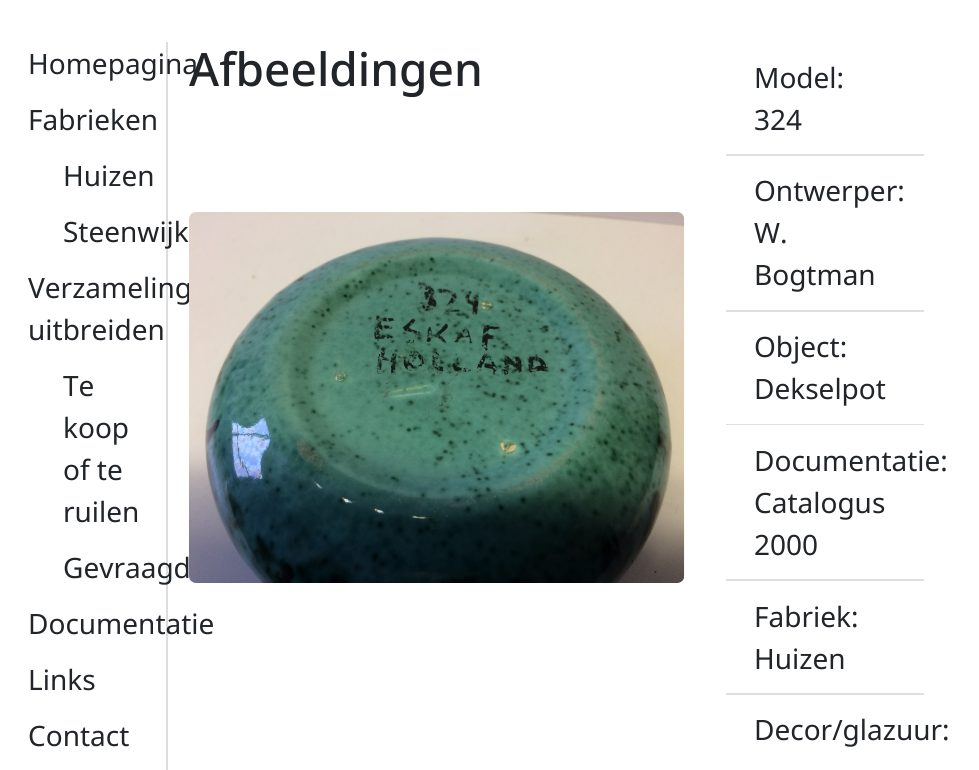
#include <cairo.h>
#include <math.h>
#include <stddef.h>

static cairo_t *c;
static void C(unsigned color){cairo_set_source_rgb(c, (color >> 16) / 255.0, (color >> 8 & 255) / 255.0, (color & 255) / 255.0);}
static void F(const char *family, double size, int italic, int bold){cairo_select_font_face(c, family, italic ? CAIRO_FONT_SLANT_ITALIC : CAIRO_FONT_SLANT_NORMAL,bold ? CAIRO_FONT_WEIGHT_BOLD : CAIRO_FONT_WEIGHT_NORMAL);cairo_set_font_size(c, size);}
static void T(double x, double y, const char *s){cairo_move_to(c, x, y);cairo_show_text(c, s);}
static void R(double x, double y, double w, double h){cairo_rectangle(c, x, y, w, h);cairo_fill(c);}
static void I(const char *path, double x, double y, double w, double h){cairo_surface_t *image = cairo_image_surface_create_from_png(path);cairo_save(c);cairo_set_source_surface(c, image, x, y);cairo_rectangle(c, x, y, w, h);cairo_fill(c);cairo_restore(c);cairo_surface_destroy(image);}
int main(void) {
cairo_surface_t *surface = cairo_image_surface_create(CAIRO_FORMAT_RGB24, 979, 770);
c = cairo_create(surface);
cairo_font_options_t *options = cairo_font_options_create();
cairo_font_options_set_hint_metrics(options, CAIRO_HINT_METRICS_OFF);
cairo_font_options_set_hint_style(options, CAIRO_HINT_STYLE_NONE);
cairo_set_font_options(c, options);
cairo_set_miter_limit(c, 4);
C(0xffffff);
cairo_paint(c);
C(0xdddddd);
R(166,42,2,728);
F("Noto Sans",28,0,0);
C(0x212529);
T(28,74,"Homepagina");
T(28,130,"Fabrieken");
T(63,186,"Huizen");
T(63,242,"Steenwijk");
T(28,298,"Verzameling");
T(28,340,"uitbreiden");
T(63,396,"Te");
T(63,438,"koop");
T(63,480,"of te");
T(63,522,"ruilen");
T(63,578,"Gevraagd");
T(28,634,"Documentatie");
T(28,690,"Links");
T(28,746,"Contact");
F("Noto Sans Medium",46,0,0);
T(189,86,"Afbeeldingen");
I("1.png",189,212,496,371);
C(0xdfdfdf);
R(726,154,198,2);
F("Noto Sans",28,0,0);
C(0x212529);
T(754,88,"Model:");
T(754,130,"324");
C(0xdfdfdf);
R(726,310,198,2);
C(0x212529);
T(754,201,"Ontwerper:");
T(754,243,"W.");
T(754,285,"Bogtman");
C(0xdfdfdf);
R(726,424,198,1);
C(0x212529);
T(754,357,"Object:");
T(754,399,"Dekselpot");
C(0xdfdfdf);
R(726,579,198,2);
C(0x212529);
T(754,471,"Documentatie:");
T(754,513,"Catalogus");
T(754,555,"2000");
C(0xdfdfdf);
R(726,693,198,2);
C(0x212529);
T(754,627,"Fabriek:");
T(754,669,"Huizen");
T(754,740,"Decor/glazuur:");
cairo_surface_write_to_png(surface, "o.png");
cairo_font_options_destroy(options);
cairo_destroy(c);
cairo_surface_destroy(surface);
return 0;
}
